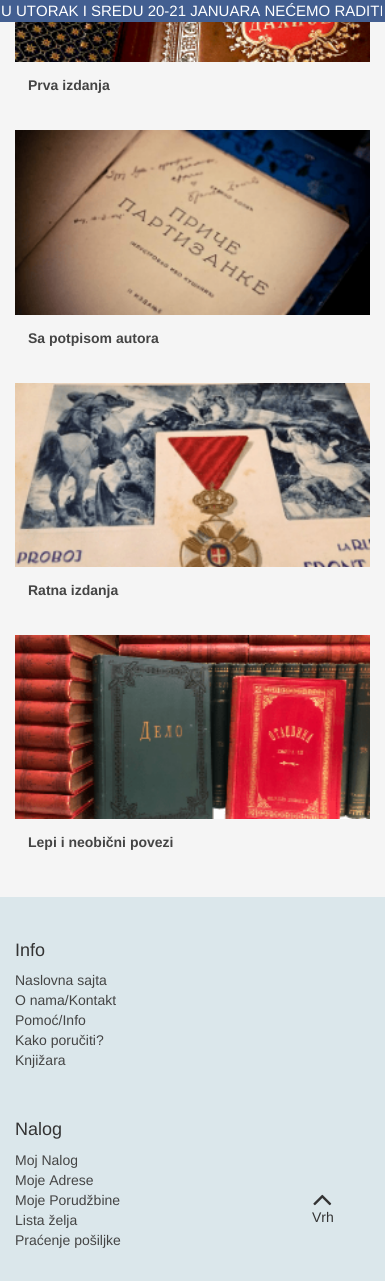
#include <cairo.h>
#include <math.h>
#include <stddef.h>

static cairo_t *c;
static void C(unsigned color){cairo_set_source_rgb(c, (color >> 16) / 255.0, (color >> 8 & 255) / 255.0, (color & 255) / 255.0);}
static void F(const char *family, double size, int italic, int bold){cairo_select_font_face(c, family, italic ? CAIRO_FONT_SLANT_ITALIC : CAIRO_FONT_SLANT_NORMAL,bold ? CAIRO_FONT_WEIGHT_BOLD : CAIRO_FONT_WEIGHT_NORMAL);cairo_set_font_size(c, size);}
static void T(double x, double y, const char *s){cairo_move_to(c, x, y);cairo_show_text(c, s);}
static void R(double x, double y, double w, double h){cairo_rectangle(c, x, y, w, h);cairo_fill(c);}
static void I(const char *path, double x, double y, double w, double h){cairo_surface_t *image = cairo_image_surface_create_from_png(path);cairo_save(c);cairo_set_source_surface(c, image, x, y);cairo_rectangle(c, x, y, w, h);cairo_fill(c);cairo_restore(c);cairo_surface_destroy(image);}
int main(void) {
cairo_surface_t *surface = cairo_image_surface_create(CAIRO_FORMAT_RGB24, 385, 1281);
c = cairo_create(surface);
cairo_font_options_t *options = cairo_font_options_create();
cairo_font_options_set_hint_metrics(options, CAIRO_HINT_METRICS_OFF);
cairo_font_options_set_hint_style(options, CAIRO_HINT_STYLE_NONE);
cairo_set_font_options(c, options);
cairo_set_miter_limit(c, 4);
C(0xdbe7eb);
cairo_paint(c);
C(0x435f91);
R(0,0,385,22);
F("Liberation Sans",15,0,0);
C(0xffffff);
T(1,16,"U UTORAK I SREDU 20-21 JANUARA NEĆEMO RADITI");
C(0xf5f5f5);
R(0,22,385,875);
I("1.png",15,22,355,40);
F("Liberation Sans",14,0,1);
C(0x444444);
T(28,90,"Prva izdanja");
I("2.png",15,130,355,185);
T(28,343,"Sa potpisom autora");
I("3.png",15,383,355,184);
T(28,595,"Ratna izdanja");
I("4.png",15,635,355,184);
T(28,847,"Lepi i neobični povezi");
F("Liberation Sans",18,0,0);
C(0x333333);
T(15,956,"Info");
F("Liberation Sans",14,0,0);
C(0x444444);
T(15,985,"Naslovna sajta");
T(15,1005,"O nama/Kontakt");
T(15,1025,"Pomoć/Info");
T(15,1045,"Kako poručiti?");
T(15,1065,"Knjižara");
F("Liberation Sans",18,0,0);
C(0x333333);
T(15,1135,"Nalog");
F("Liberation Sans",14,0,0);
C(0x444444);
T(15,1165,"Moj Nalog");
T(15,1185,"Moje Adrese");
T(15,1205,"Moje Porudžbine");
T(15,1225,"Lista želja");
T(15,1245,"Praćenje pošiljke");
I("5.png",313,1194,19,12);
C(0x333333);
T(312,1222,"Vrh");
cairo_surface_write_to_png(surface, "o.png");
cairo_font_options_destroy(options);
cairo_destroy(c);
cairo_surface_destroy(surface);
return 0;
}
